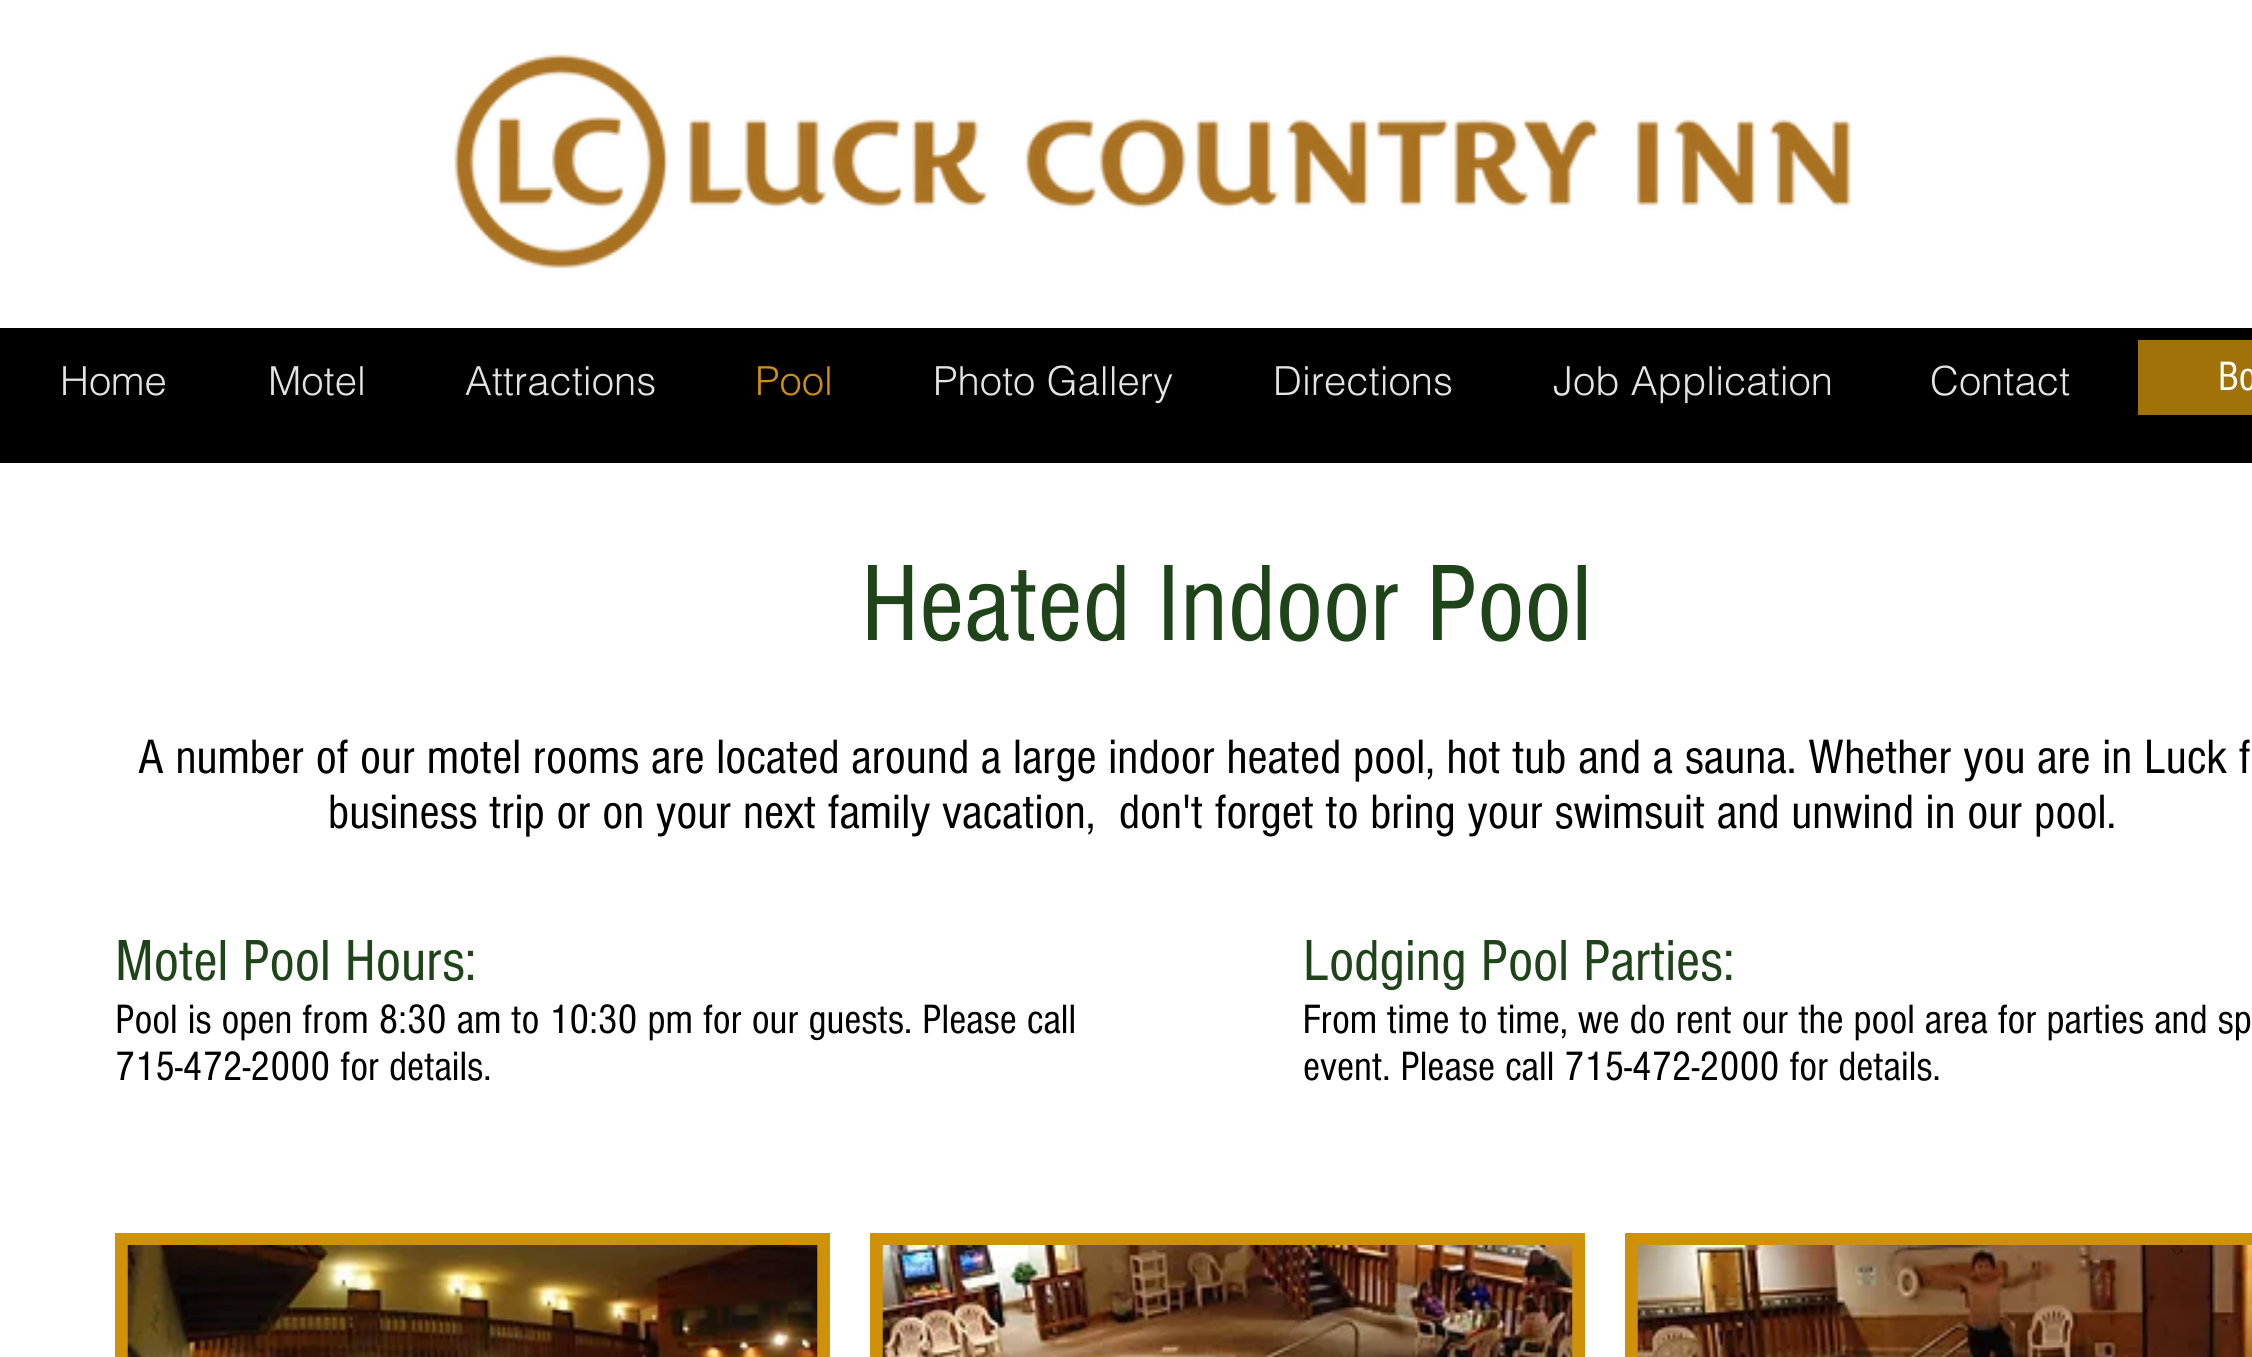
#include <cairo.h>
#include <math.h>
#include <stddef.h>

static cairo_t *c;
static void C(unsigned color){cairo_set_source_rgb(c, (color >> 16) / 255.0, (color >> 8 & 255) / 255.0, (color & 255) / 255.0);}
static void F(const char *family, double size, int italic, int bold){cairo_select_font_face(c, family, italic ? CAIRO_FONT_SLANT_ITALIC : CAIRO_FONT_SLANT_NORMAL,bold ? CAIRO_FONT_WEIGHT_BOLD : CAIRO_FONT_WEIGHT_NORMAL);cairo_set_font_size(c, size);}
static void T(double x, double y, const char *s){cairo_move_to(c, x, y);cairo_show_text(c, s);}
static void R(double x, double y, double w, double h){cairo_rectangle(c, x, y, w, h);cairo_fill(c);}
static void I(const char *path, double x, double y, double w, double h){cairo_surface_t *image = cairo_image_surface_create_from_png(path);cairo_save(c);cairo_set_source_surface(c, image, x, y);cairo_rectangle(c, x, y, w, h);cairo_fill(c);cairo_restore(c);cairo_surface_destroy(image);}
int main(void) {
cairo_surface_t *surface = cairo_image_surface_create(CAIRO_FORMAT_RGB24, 2252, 1357);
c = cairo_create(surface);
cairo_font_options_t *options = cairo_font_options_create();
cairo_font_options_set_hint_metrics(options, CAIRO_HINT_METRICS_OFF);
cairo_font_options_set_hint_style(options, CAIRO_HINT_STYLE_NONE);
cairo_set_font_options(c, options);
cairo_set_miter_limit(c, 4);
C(0xffffff);
cairo_paint(c);
I("1.png",454,54,1397,215);
C(0x000000);
R(0,328,2252,135);
F("helvetica Light",40,0,0);
C(0xe4e4e4);
T(60,395,"Home");
T(268,395,"Motel");
T(465,395,"Attractions");
C(0xcf900a);
T(755,395,"Pool");
C(0xe4e4e4);
T(933,395,"Photo Gallery");
T(1273,395,"Directions");
T(1553,395,"Job Application");
T(1930,395,"Contact");
C(0xa2720a);
R(2138,340,114,75);
F("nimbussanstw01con",42.5,0,0);
C(0xffffff);
T(2218,390,"Bo");
F("nimbussanstw01con",112.5,0,0);
C(0x1f4419);
T(861,640,"Heated Indoor Pool");
F("nimbussanstw01con",50,0,0);
C(0x000000);
T(138,773,"A number of our motel rooms are located around a large indoor heated pool, hot tub and a sauna. Whether you are in Luck f");
T(328,828,"business trip or on your next family vacation,  don't forget to bring your swimsuit and unwind in our pool.");
F("nimbussanstw01con",60,0,0);
C(0x1f4419);
T(115,980,"Motel Pool Hours:");
F("nimbussanstw01con",42.5,0,0);
C(0x000000);
T(115,1033,"Pool is open from 8:30 am to 10:30 pm for our guests. Please call");
T(115,1080,"715-472-2000 for details.");
F("nimbussanstw01con",60,0,0);
C(0x1f4419);
T(1303,980,"Lodging Pool Parties:");
F("nimbussanstw01con",42.5,0,0);
C(0x000000);
T(1303,1033,"From time to time, we do rent our the pool area for parties and sp");
T(1303,1080,"event. Please call 715-472-2000 for details.");
C(0xcf900a);
R(115,1233,715,124);
I("2.png",127,1245,691,112);
R(870,1233,715,124);
I("3.png",882,1245,691,112);
R(1625,1233,627,124);
I("4.png",1637,1245,615,112);
cairo_surface_write_to_png(surface, "o.png");
cairo_font_options_destroy(options);
cairo_destroy(c);
cairo_surface_destroy(surface);
return 0;
}
